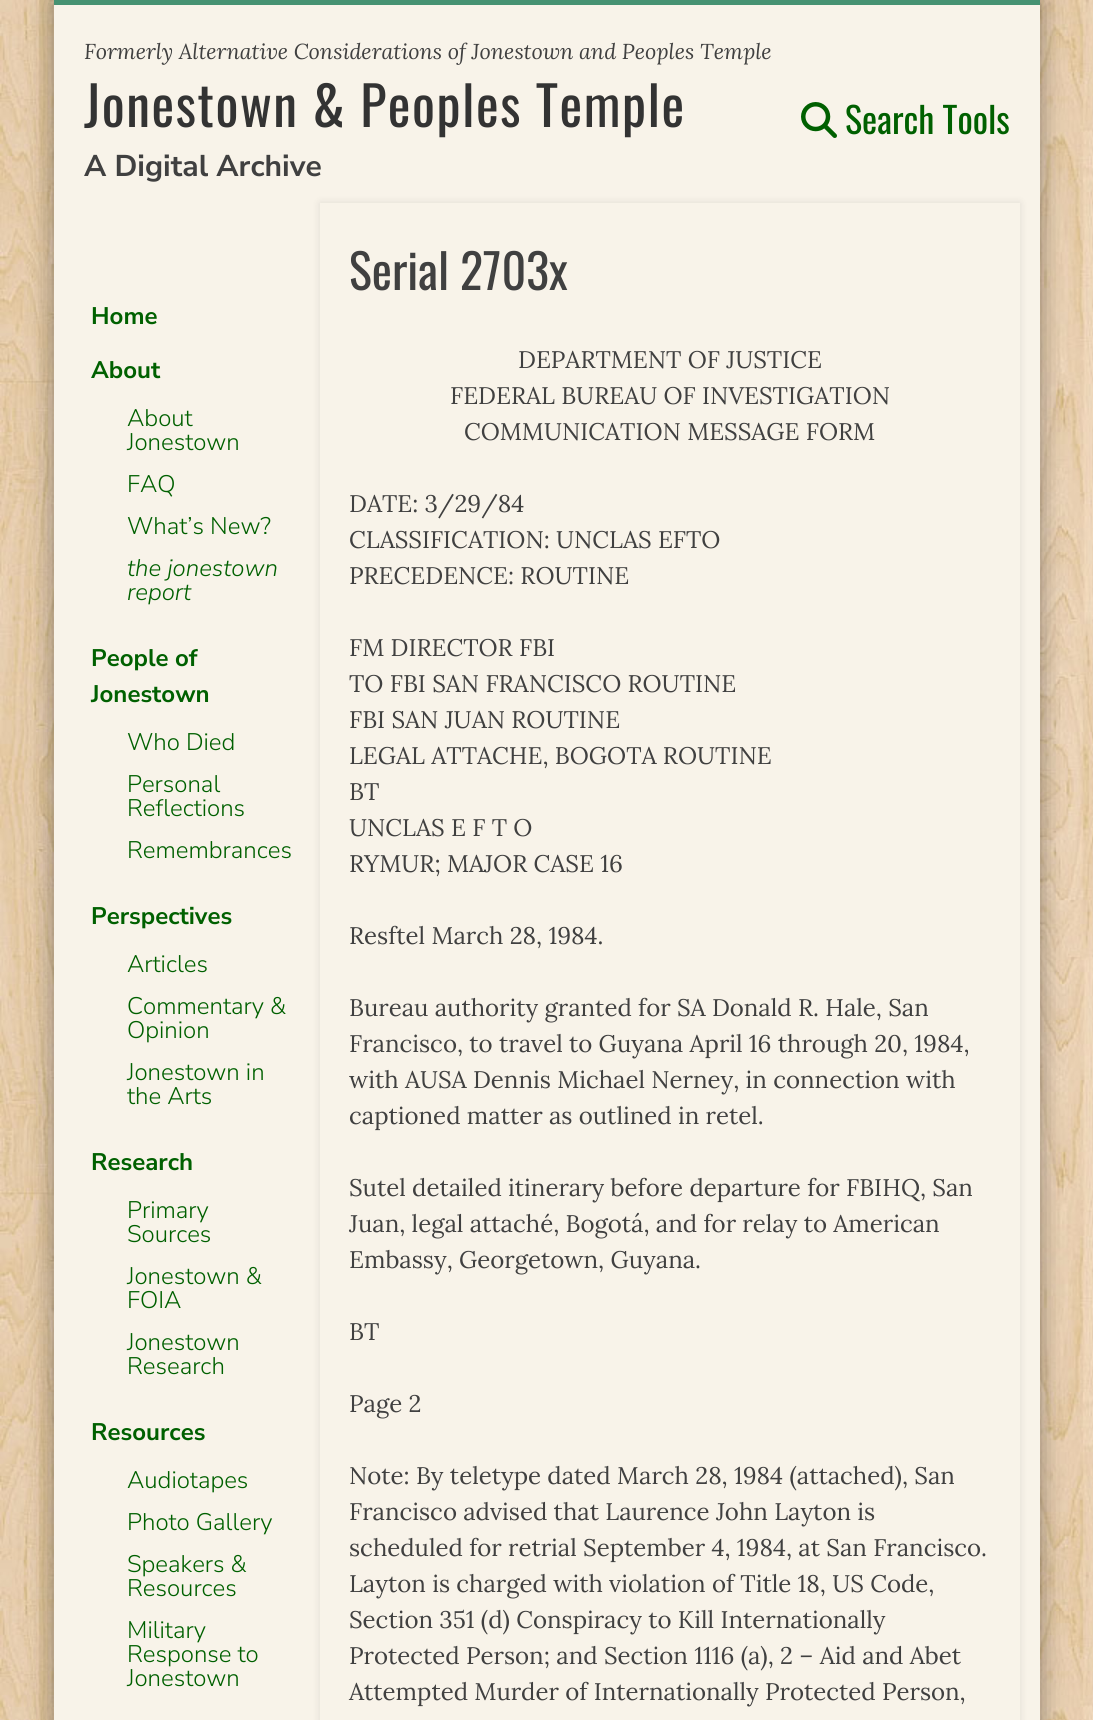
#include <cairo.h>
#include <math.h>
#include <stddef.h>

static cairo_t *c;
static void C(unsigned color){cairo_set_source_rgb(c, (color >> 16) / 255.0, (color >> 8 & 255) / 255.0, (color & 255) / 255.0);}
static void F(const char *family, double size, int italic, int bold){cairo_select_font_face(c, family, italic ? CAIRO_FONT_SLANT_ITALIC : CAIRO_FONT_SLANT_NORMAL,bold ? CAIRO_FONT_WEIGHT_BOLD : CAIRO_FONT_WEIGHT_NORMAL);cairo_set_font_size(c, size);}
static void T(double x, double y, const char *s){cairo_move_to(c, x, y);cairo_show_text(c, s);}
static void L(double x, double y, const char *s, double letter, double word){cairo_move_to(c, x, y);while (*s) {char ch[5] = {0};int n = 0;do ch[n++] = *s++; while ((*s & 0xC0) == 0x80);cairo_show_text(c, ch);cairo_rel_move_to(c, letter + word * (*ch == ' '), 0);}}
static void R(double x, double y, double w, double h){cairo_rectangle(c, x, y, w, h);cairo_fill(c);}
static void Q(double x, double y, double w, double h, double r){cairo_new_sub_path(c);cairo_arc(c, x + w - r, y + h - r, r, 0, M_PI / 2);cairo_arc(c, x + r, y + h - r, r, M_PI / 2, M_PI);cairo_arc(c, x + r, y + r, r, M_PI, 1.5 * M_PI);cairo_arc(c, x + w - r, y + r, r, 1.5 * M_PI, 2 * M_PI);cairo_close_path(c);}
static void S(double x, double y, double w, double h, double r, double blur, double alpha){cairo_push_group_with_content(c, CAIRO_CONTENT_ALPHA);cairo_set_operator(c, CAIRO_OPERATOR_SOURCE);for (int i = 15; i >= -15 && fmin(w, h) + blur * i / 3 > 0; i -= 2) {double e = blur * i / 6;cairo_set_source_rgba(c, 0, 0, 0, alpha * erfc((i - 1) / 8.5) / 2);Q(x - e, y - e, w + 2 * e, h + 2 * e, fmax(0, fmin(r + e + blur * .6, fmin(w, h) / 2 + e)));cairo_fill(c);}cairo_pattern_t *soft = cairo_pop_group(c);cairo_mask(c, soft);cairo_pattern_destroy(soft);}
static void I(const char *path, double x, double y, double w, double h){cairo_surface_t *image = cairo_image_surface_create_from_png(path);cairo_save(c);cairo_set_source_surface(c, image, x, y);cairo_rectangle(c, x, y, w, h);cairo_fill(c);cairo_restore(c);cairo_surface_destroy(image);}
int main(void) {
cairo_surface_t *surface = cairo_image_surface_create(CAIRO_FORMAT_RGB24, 1093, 1720);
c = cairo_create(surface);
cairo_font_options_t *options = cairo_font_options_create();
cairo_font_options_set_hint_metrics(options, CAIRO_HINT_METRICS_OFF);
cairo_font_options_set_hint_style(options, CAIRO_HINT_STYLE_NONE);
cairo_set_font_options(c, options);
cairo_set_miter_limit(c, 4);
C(0xffffff);
cairo_paint(c);
I("1.png",0,0,1093,1720);
C(0x000000);
S(54,0,986,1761,0,13.5,.4);
C(0xf8f3e9);
R(54,5,986,1715);
C(0x469272);
R(54,0,986,5);
F("Lora",21.6,1,0);
C(0x404040);
T(84,59,"Formerly Alternative Considerations of Jonestown and Peoples Temple");
F("Oswald",54,0,0);
C(0x333333);
L(84,127,"Jonestown & Peoples Temple",1.5,0);
F("Nunito Sans",30,0,1);
C(0x404040);
T(84,176,"A Digital Archive");
I("2.png",801,102,36,36);
F("Oswald",36,0,0);
C(0x006000);
T(845,134,"Search Tools");
F("Nunito Sans",24,0,1);
T(91,324,"Home");
T(91,378,"About");
F("Nunito Sans Light",24,0,0);
T(127,426,"About");
T(127,450,"Jonestown");
T(127,492,"FAQ");
T(127,534,"What’s New?");
F("Nunito Sans Light",24,1,0);
T(127,576,"the jonestown");
T(127,600,"report");
F("Nunito Sans",24,0,1);
T(91,666,"People of");
T(91,702,"Jonestown");
F("Nunito Sans Light",24,0,0);
T(127,750,"Who Died");
T(127,792,"Personal");
T(127,816,"Reflections");
T(127,858,"Remembrances");
F("Nunito Sans",24,0,1);
T(91,924,"Perspectives");
F("Nunito Sans Light",24,0,0);
T(127,972,"Articles");
T(127,1014,"Commentary &");
T(127,1038,"Opinion");
T(127,1080,"Jonestown in");
T(127,1104,"the Arts");
F("Nunito Sans",24,0,1);
T(91,1170,"Research");
F("Nunito Sans Light",24,0,0);
T(127,1218,"Primary");
T(127,1242,"Sources");
T(127,1284,"Jonestown &");
T(127,1308,"FOIA");
T(127,1350,"Jonestown");
T(127,1374,"Research");
F("Nunito Sans",24,0,1);
T(91,1440,"Resources");
F("Nunito Sans Light",24,0,0);
T(127,1488,"Audiotapes");
T(127,1530,"Photo Gallery");
T(127,1572,"Speakers &");
T(127,1596,"Resources");
T(127,1638,"Military");
T(127,1662,"Response to");
T(127,1686,"Jonestown");
cairo_save(c);
cairo_set_fill_rule(c,CAIRO_FILL_RULE_EVEN_ODD);
cairo_new_path(c);
cairo_move_to(c,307,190);
cairo_line_to(c,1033,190);
cairo_line_to(c,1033,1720);
cairo_line_to(c,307,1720);
cairo_close_path(c);
cairo_move_to(c,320,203);
cairo_line_to(c,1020,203);
cairo_line_to(c,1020,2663);
cairo_line_to(c,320,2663);
cairo_close_path(c);
cairo_clip(c);
C(0x000000);
S(320,203,700,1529,0,4,.1);
cairo_restore(c);
F("Oswald",48,0,0);
C(0x404040);
T(349,290,"Serial 2703x");
F("Lora",24,0,0);
T(518,368,"DEPARTMENT OF JUSTICE");
T(450,404,"FEDERAL BUREAU OF INVESTIGATION");
T(464,440,"COMMUNICATION MESSAGE FORM");
T(349,512,"DATE: 3/29/84");
T(349,548,"CLASSIFICATION: UNCLAS EFTO");
T(349,584,"PRECEDENCE: ROUTINE");
T(349,656,"FM DIRECTOR FBI");
T(349,692,"TO FBI SAN FRANCISCO ROUTINE");
T(349,728,"FBI SAN JUAN ROUTINE");
T(349,764,"LEGAL ATTACHE, BOGOTA ROUTINE");
T(349,800,"BT");
T(349,836,"UNCLAS E F T O");
T(349,872,"RYMUR; MAJOR CASE 16");
T(349,944,"Resftel March 28, 1984.");
T(349,1016,"Bureau authority granted for SA Donald R. Hale, San");
T(349,1052,"Francisco, to travel to Guyana April 16 through 20, 1984,");
T(349,1088,"with AUSA Dennis Michael Nerney, in connection with");
T(349,1124,"captioned matter as outlined in retel.");
T(349,1196,"Sutel detailed itinerary before departure for FBIHQ, San");
T(349,1232,"Juan, legal attaché, Bogotá, and for relay to American");
T(349,1268,"Embassy, Georgetown, Guyana.");
T(349,1340,"BT");
T(349,1412,"Page 2");
T(349,1484,"Note: By teletype dated March 28, 1984 (attached), San");
T(349,1520,"Francisco advised that Laurence John Layton is");
T(349,1556,"scheduled for retrial September 4, 1984, at San Francisco.");
T(349,1592,"Layton is charged with violation of Title 18, US Code,");
T(349,1628,"Section 351 (d) Conspiracy to Kill Internationally");
T(349,1664,"Protected Person; and Section 1116 (a), 2 – Aid and Abet");
T(349,1700,"Attempted Murder of Internationally Protected Person,");
cairo_surface_write_to_png(surface, "o.png");
cairo_font_options_destroy(options);
cairo_destroy(c);
cairo_surface_destroy(surface);
return 0;
}
